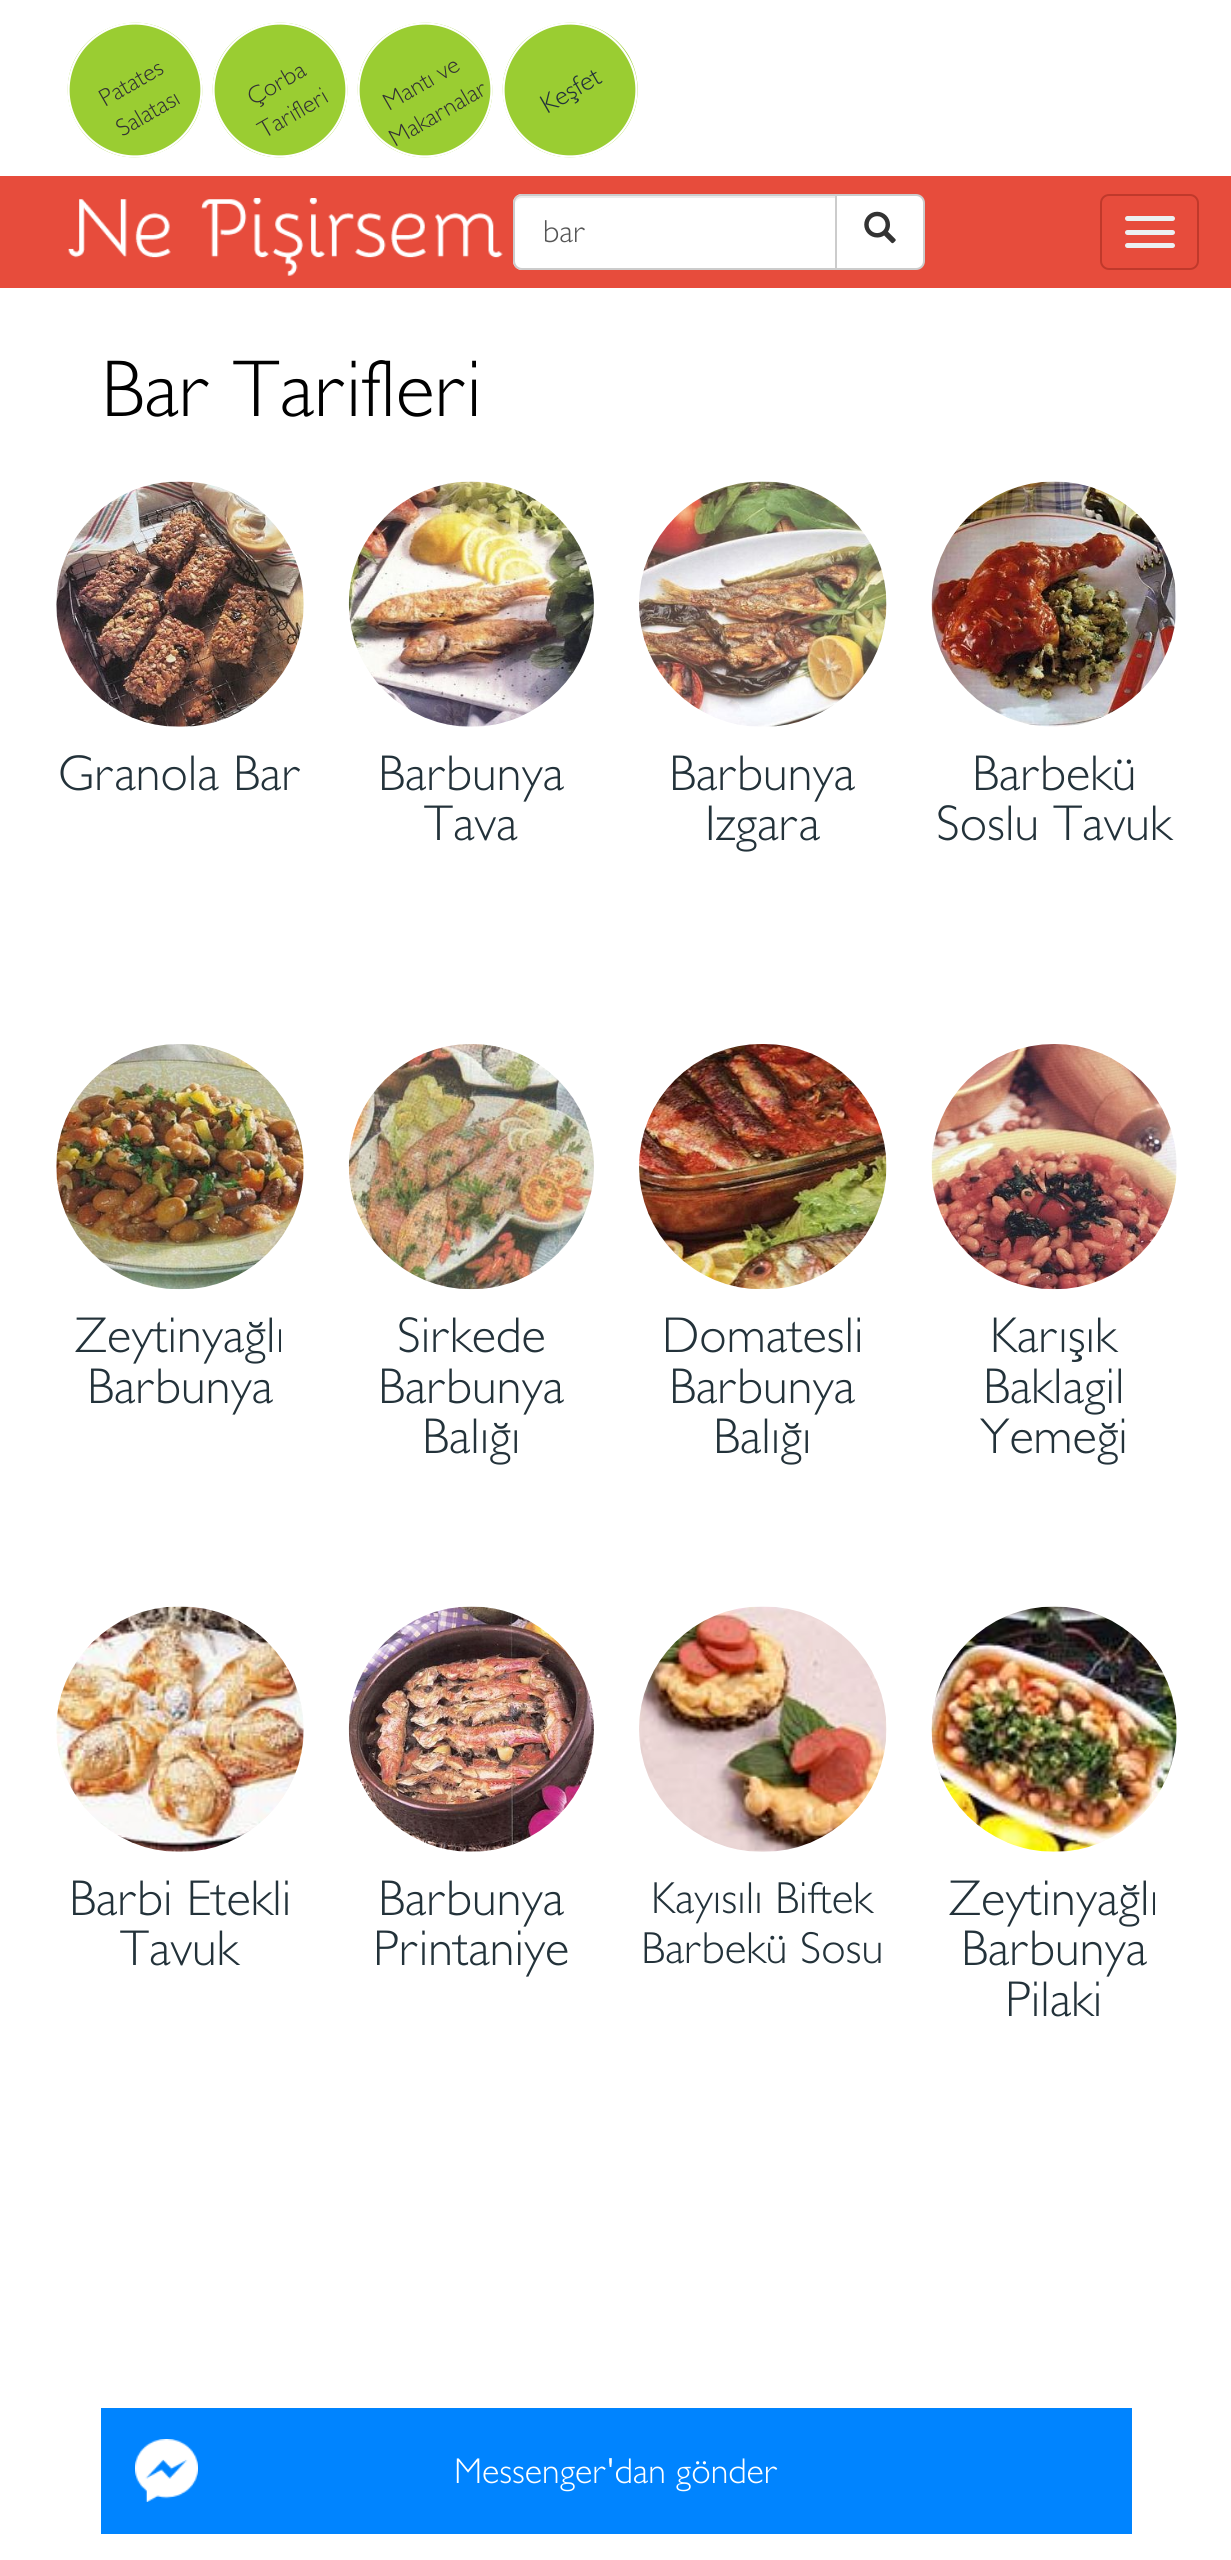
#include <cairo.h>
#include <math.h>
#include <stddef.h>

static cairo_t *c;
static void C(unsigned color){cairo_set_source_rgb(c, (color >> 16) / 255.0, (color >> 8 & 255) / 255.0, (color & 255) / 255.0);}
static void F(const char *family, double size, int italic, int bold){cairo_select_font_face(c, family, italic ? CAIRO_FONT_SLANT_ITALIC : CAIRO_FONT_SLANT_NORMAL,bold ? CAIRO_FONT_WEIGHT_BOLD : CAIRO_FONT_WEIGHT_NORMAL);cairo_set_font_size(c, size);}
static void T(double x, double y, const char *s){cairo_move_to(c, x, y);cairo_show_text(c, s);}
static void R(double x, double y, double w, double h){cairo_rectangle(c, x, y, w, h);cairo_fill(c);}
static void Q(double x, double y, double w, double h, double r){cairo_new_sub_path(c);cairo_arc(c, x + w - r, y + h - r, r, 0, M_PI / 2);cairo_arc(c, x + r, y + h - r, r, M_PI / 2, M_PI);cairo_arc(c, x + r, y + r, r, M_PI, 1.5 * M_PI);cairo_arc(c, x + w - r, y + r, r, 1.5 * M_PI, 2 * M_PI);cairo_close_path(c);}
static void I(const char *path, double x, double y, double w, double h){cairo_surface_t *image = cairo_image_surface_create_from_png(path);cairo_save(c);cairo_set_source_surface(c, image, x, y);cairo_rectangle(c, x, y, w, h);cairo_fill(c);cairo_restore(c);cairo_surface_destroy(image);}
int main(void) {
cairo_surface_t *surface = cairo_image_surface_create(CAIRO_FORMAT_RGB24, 1231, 2560);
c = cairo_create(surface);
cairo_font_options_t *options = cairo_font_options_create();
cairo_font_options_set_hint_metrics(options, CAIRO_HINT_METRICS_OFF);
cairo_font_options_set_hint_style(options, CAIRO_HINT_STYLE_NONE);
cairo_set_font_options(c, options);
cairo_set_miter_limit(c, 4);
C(0xffffff);
cairo_paint(c);
C(0x9acd32);
cairo_new_path(c);
cairo_move_to(c,101,32);
cairo_curve_to(c,134,13,175,24,193,56);
cairo_curve_to(c,212,89,201,130,169,148);
cairo_curve_to(c,136,167,95,156,77,124);
cairo_curve_to(c,58,91,69,50,101,32);
cairo_close_path(c);
cairo_fill(c);
cairo_new_path(c);
cairo_move_to(c,102,32.5);
cairo_curve_to(c,133.5,14,174,25,192.5,57);
cairo_curve_to(c,211,88.5,200,129,168,147.5);
cairo_curve_to(c,136.5,166,96,155,77.5,123);
cairo_curve_to(c,59,91.5,70,51,102,32.5);
cairo_close_path(c);
C(0xffffff);
cairo_set_line_width(c,2.2);
cairo_stroke(c);
F("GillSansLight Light",24.75,0,0);
C(0x333333);
cairo_save(c);
cairo_translate(c,105,107);
cairo_rotate(c,-30 * M_PI / 180);
T(0,0,"Patates");
cairo_restore(c);
cairo_save(c);
cairo_translate(c,122,137);
cairo_rotate(c,-30 * M_PI / 180);
T(0,0,"Salatası");
cairo_restore(c);
C(0x9acd32);
cairo_new_path(c);
cairo_move_to(c,246,32);
cairo_curve_to(c,279,13,320,24,338,56);
cairo_curve_to(c,357,89,346,130,314,148);
cairo_curve_to(c,281,167,240,156,222,124);
cairo_curve_to(c,203,91,214,50,246,32);
cairo_close_path(c);
cairo_fill(c);
cairo_new_path(c);
cairo_move_to(c,247,32.5);
cairo_curve_to(c,278.5,14,319,25,337.5,57);
cairo_curve_to(c,356,88.5,345,129,313,147.5);
cairo_curve_to(c,281.5,166,241,155,222.5,123);
cairo_curve_to(c,204,91.5,215,51,247,32.5);
cairo_close_path(c);
C(0xffffff);
cairo_stroke(c);
C(0x333333);
cairo_save(c);
cairo_translate(c,253,106);
cairo_rotate(c,-30 * M_PI / 180);
T(0,0,"Çorba");
cairo_restore(c);
cairo_save(c);
cairo_translate(c,264,139);
cairo_rotate(c,-30 * M_PI / 180);
T(0,0,"Tarifleri");
cairo_restore(c);
C(0x9acd32);
cairo_new_path(c);
cairo_move_to(c,391,32);
cairo_curve_to(c,424,13,465,24,483,56);
cairo_curve_to(c,502,89,491,130,459,148);
cairo_curve_to(c,427,167,385,156,367,124);
cairo_curve_to(c,348,91,359,50,391,32);
cairo_close_path(c);
cairo_fill(c);
cairo_new_path(c);
cairo_move_to(c,392,32.5);
cairo_curve_to(c,423.5,14,464,25,482.5,57);
cairo_curve_to(c,501,88.5,490,129,458,147.5);
cairo_curve_to(c,426.5,166,386,155,367.5,123);
cairo_curve_to(c,349,91.5,360,51,392,32.5);
cairo_close_path(c);
C(0xffffff);
cairo_stroke(c);
C(0x333333);
cairo_save(c);
cairo_translate(c,389,111);
cairo_rotate(c,-30 * M_PI / 180);
T(0,0,"Mantı ve");
cairo_restore(c);
cairo_save(c);
cairo_translate(c,395,147);
cairo_rotate(c,-30 * M_PI / 180);
T(0,0,"Makarnalar");
cairo_restore(c);
C(0x9acd32);
cairo_new_path(c);
cairo_move_to(c,536,32);
cairo_curve_to(c,569,13,610,24,629,56);
cairo_curve_to(c,647,89,636,130,604,148);
cairo_curve_to(c,572,167,530,156,512,124);
cairo_curve_to(c,493,91,504,50,536,32);
cairo_close_path(c);
cairo_fill(c);
cairo_new_path(c);
cairo_move_to(c,537,32.5);
cairo_curve_to(c,568.5,14,609,25,627.5,57);
cairo_curve_to(c,646,88.5,635,129,603,147.5);
cairo_curve_to(c,571.5,166,531,155,512.5,123);
cairo_curve_to(c,494,91.5,505,51,537,32.5);
cairo_close_path(c);
C(0xffffff);
cairo_stroke(c);
F("GillSansLight Light",27,0,0);
C(0x23323a);
cairo_save(c);
cairo_translate(c,547,114);
cairo_rotate(c,-30 * M_PI / 180);
T(0,0,"Keşfet");
cairo_restore(c);
C(0xe74c3c);
R(0,176,1231,112);
I("1.png",68,198,435,78);
C(0xffffff);
cairo_new_path(c);
cairo_move_to(c,522,194);
cairo_line_to(c,837,194);
cairo_line_to(c,837,270);
cairo_line_to(c,522,270);
cairo_curve_to(c,517,270,513,266,513,261);
cairo_line_to(c,513,203);
cairo_curve_to(c,513,198,517,194,522,194);
cairo_close_path(c);
cairo_fill(c);
C(0xececec);
cairo_new_path(c);
cairo_move_to(c,522,198);
cairo_line_to(c,835,198);
cairo_line_to(c,835,196);
cairo_line_to(c,522,196);
cairo_curve_to(c,517,196,515,201,515,205);
cairo_curve_to(c,515,201,518,198,522,198);
cairo_close_path(c);
cairo_fill(c);
cairo_new_path(c);
cairo_move_to(c,522,195);
cairo_line_to(c,836,195);
cairo_line_to(c,836,269);
cairo_line_to(c,522,269);
cairo_curve_to(c,517.5,269,514,265.5,514,261);
cairo_line_to(c,514,203);
cairo_curve_to(c,514,198.5,517.5,195,522,195);
cairo_close_path(c);
C(0xcccccc);
cairo_set_line_width(c,2);
cairo_stroke(c);
F("GillSansLight Light",32,0,0);
C(0x555555);
T(543,242,"bar");
C(0xffffff);
cairo_new_path(c);
cairo_move_to(c,836,195);
cairo_line_to(c,916,195);
cairo_curve_to(c,920.5,195,924,198.5,924,203);
cairo_line_to(c,924,261);
cairo_curve_to(c,924,265.5,920.5,269,916,269);
cairo_line_to(c,836,269);
cairo_close_path(c);
cairo_fill_preserve(c);
C(0xcccccc);
cairo_stroke(c);
I("2.png",864,211,32,33);
Q(1101,195,97,74,8);
C(0xc0392b);
cairo_stroke(c);
C(0xecf0f1);
Q(1125,216,50,5,2.5);
cairo_fill(c);
Q(1125,230,50,5,2.5);
cairo_fill(c);
Q(1125,243,50,5,2.5);
cairo_fill(c);
F("GillSansLight Light",81,0,0);
C(0x000000);
T(101,416,"Bar Tarifleri");
I("3.png",56,481,248,246);
F("GillSansLight Light",50.5,0,0);
C(0x23323a);
T(58,790,"Granola Bar");
I("4.png",348,481,246,246);
T(378,790,"Barbunya");
T(424,840,"Tava");
I("5.png",639,481,248,246);
T(669,790,"Barbunya");
T(705,840,"Izgara");
I("6.png",931,481,246,246);
T(972,790,"Barbekü");
T(936,840,"Soslu Tavuk");
I("7.png",56,1044,248,246);
T(75,1352,"Zeytinyağlı");
T(87,1403,"Barbunya");
I("8.png",348,1044,246,246);
T(397,1352,"Sirkede");
T(378,1403,"Barbunya");
T(422,1453,"Balığı");
I("9.png",639,1044,248,246);
T(662,1352,"Domatesli");
T(669,1403,"Barbunya");
T(713,1453,"Balığı");
I("10.png",931,1044,246,246);
T(990,1352,"Karışık");
T(983,1403,"Baklagil");
T(980,1453,"Yemeği");
I("11.png",56,1606,248,246);
T(69,1915,"Barbi Etekli");
T(120,1965,"Tavuk");
I("12.png",348,1606,246,246);
T(378,1915,"Barbunya");
T(373,1965,"Printaniye");
I("13.png",639,1606,248,246);
F("GillSansLight Light",45,0,0);
T(651,1913,"Kayısılı Biftek");
T(641,1963,"Barbekü Sosu");
I("14.png",931,1606,246,246);
F("GillSansLight Light",50.5,0,0);
T(949,1915,"Zeytinyağlı");
T(961,1965,"Barbunya");
T(1005,2016,"Pilaki");
C(0x0084ff);
R(101,2408,1031,126);
I("15.png",135,2439,63,63);
F("GillSansLight Light",36,0,0);
C(0xffffff);
T(454,2483,"Messenger'dan gönder");
cairo_surface_write_to_png(surface, "o.png");
cairo_font_options_destroy(options);
cairo_destroy(c);
cairo_surface_destroy(surface);
return 0;
}
